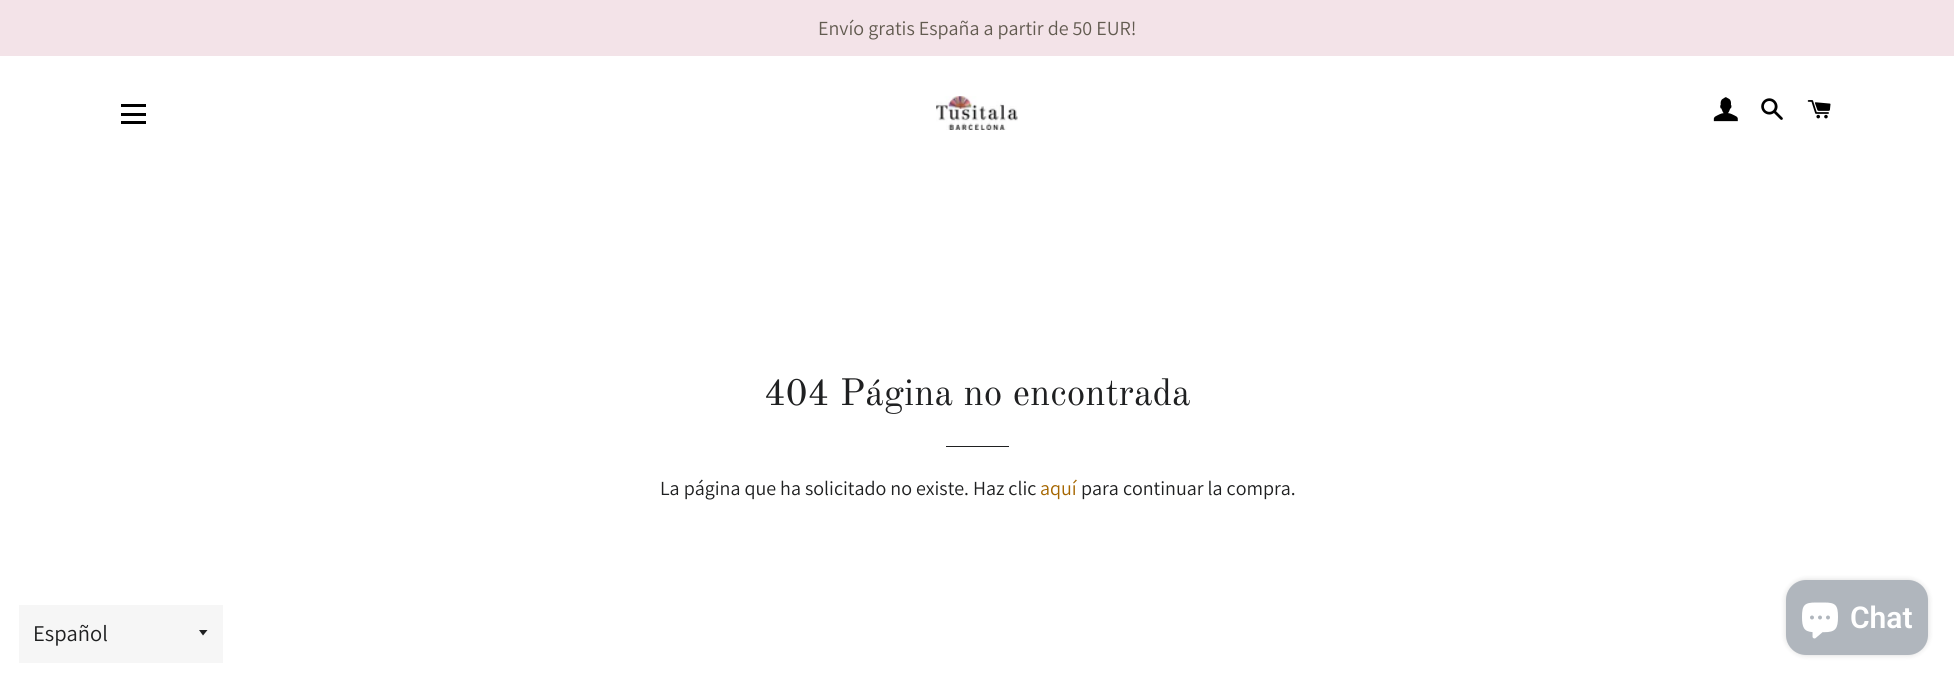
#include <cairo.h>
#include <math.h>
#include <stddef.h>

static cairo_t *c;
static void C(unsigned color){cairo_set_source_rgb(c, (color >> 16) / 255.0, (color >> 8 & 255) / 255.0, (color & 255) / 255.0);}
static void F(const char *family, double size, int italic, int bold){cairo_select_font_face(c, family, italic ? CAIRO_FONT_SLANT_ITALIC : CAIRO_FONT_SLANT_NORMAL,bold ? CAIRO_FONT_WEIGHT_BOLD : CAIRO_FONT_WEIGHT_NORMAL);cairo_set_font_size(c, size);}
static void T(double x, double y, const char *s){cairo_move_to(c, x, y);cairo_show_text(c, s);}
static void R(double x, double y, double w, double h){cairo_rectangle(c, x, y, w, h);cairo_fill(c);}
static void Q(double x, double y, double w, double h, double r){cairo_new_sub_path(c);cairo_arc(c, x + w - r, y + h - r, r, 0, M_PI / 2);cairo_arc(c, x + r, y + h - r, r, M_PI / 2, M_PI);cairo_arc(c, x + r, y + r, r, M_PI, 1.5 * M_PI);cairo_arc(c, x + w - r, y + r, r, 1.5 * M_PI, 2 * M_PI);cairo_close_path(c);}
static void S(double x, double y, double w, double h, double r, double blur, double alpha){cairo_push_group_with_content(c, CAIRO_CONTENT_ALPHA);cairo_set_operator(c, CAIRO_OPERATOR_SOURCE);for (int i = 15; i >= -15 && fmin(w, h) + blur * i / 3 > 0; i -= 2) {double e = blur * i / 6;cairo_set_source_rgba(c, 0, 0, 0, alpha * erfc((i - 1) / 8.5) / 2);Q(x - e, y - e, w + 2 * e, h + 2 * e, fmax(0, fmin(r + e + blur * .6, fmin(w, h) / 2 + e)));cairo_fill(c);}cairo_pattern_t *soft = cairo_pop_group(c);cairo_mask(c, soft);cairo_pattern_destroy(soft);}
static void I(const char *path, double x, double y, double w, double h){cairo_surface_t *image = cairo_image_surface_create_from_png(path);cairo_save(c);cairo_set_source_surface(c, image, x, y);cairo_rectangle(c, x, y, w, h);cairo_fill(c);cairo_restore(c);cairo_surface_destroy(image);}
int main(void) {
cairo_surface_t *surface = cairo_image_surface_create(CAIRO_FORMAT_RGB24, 1954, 681);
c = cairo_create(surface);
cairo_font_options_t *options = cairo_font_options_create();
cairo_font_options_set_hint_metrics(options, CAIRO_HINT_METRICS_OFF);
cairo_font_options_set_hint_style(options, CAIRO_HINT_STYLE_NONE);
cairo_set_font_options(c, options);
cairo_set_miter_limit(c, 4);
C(0xffffff);
cairo_paint(c);
C(0xf3e3e8);
R(0,0,1954,56);
F("Assistant",20,0,0);
C(0x625b50);
T(818,35,"Envío gratis España a partir de 50 EUR!");
C(0x000000);
R(121,104,25,3);
R(121,113,25,3);
R(121,121,25,3);
I("1.png",936,96,82,34);
I("2.png",1713,97,25,25);
I("3.png",1761,98,22,22);
I("4.png",1807,100,24,19);
F("Old Standard TT",37.5,0,0);
C(0x1f2021);
T(764,405,"404 Página no encontrada");
R(946,446,63,1);
F("Assistant",20,0,0);
T(660,495,"La página que ha solicitado no existe. Haz clic");
C(0xa56600);
T(1040,495,"aquí");
C(0x1f2021);
T(1081,495,"para continuar la compra.");
C(0x000000);
S(1786,580,142,75,20,3,.15);
C(0xb0b6bd);
Q(1786,580,142,75,20);
cairo_fill(c);
I("5.png",1802,602,36,37);
F("Roboto SemiBold",30,0,0);
C(0xffffff);
T(1850,628,"Chat");
C(0xf6f6f6);
R(19,605,204,58);
C(0x1f2021);
cairo_new_path(c);
cairo_move_to(c,199,630);
cairo_line_to(c,203,635.5);
cairo_line_to(c,207.5,630);
cairo_close_path(c);
cairo_fill(c);
F("Assistant",22.5,0,0);
T(33,641,"Español");
cairo_surface_write_to_png(surface, "o.png");
cairo_font_options_destroy(options);
cairo_destroy(c);
cairo_surface_destroy(surface);
return 0;
}
